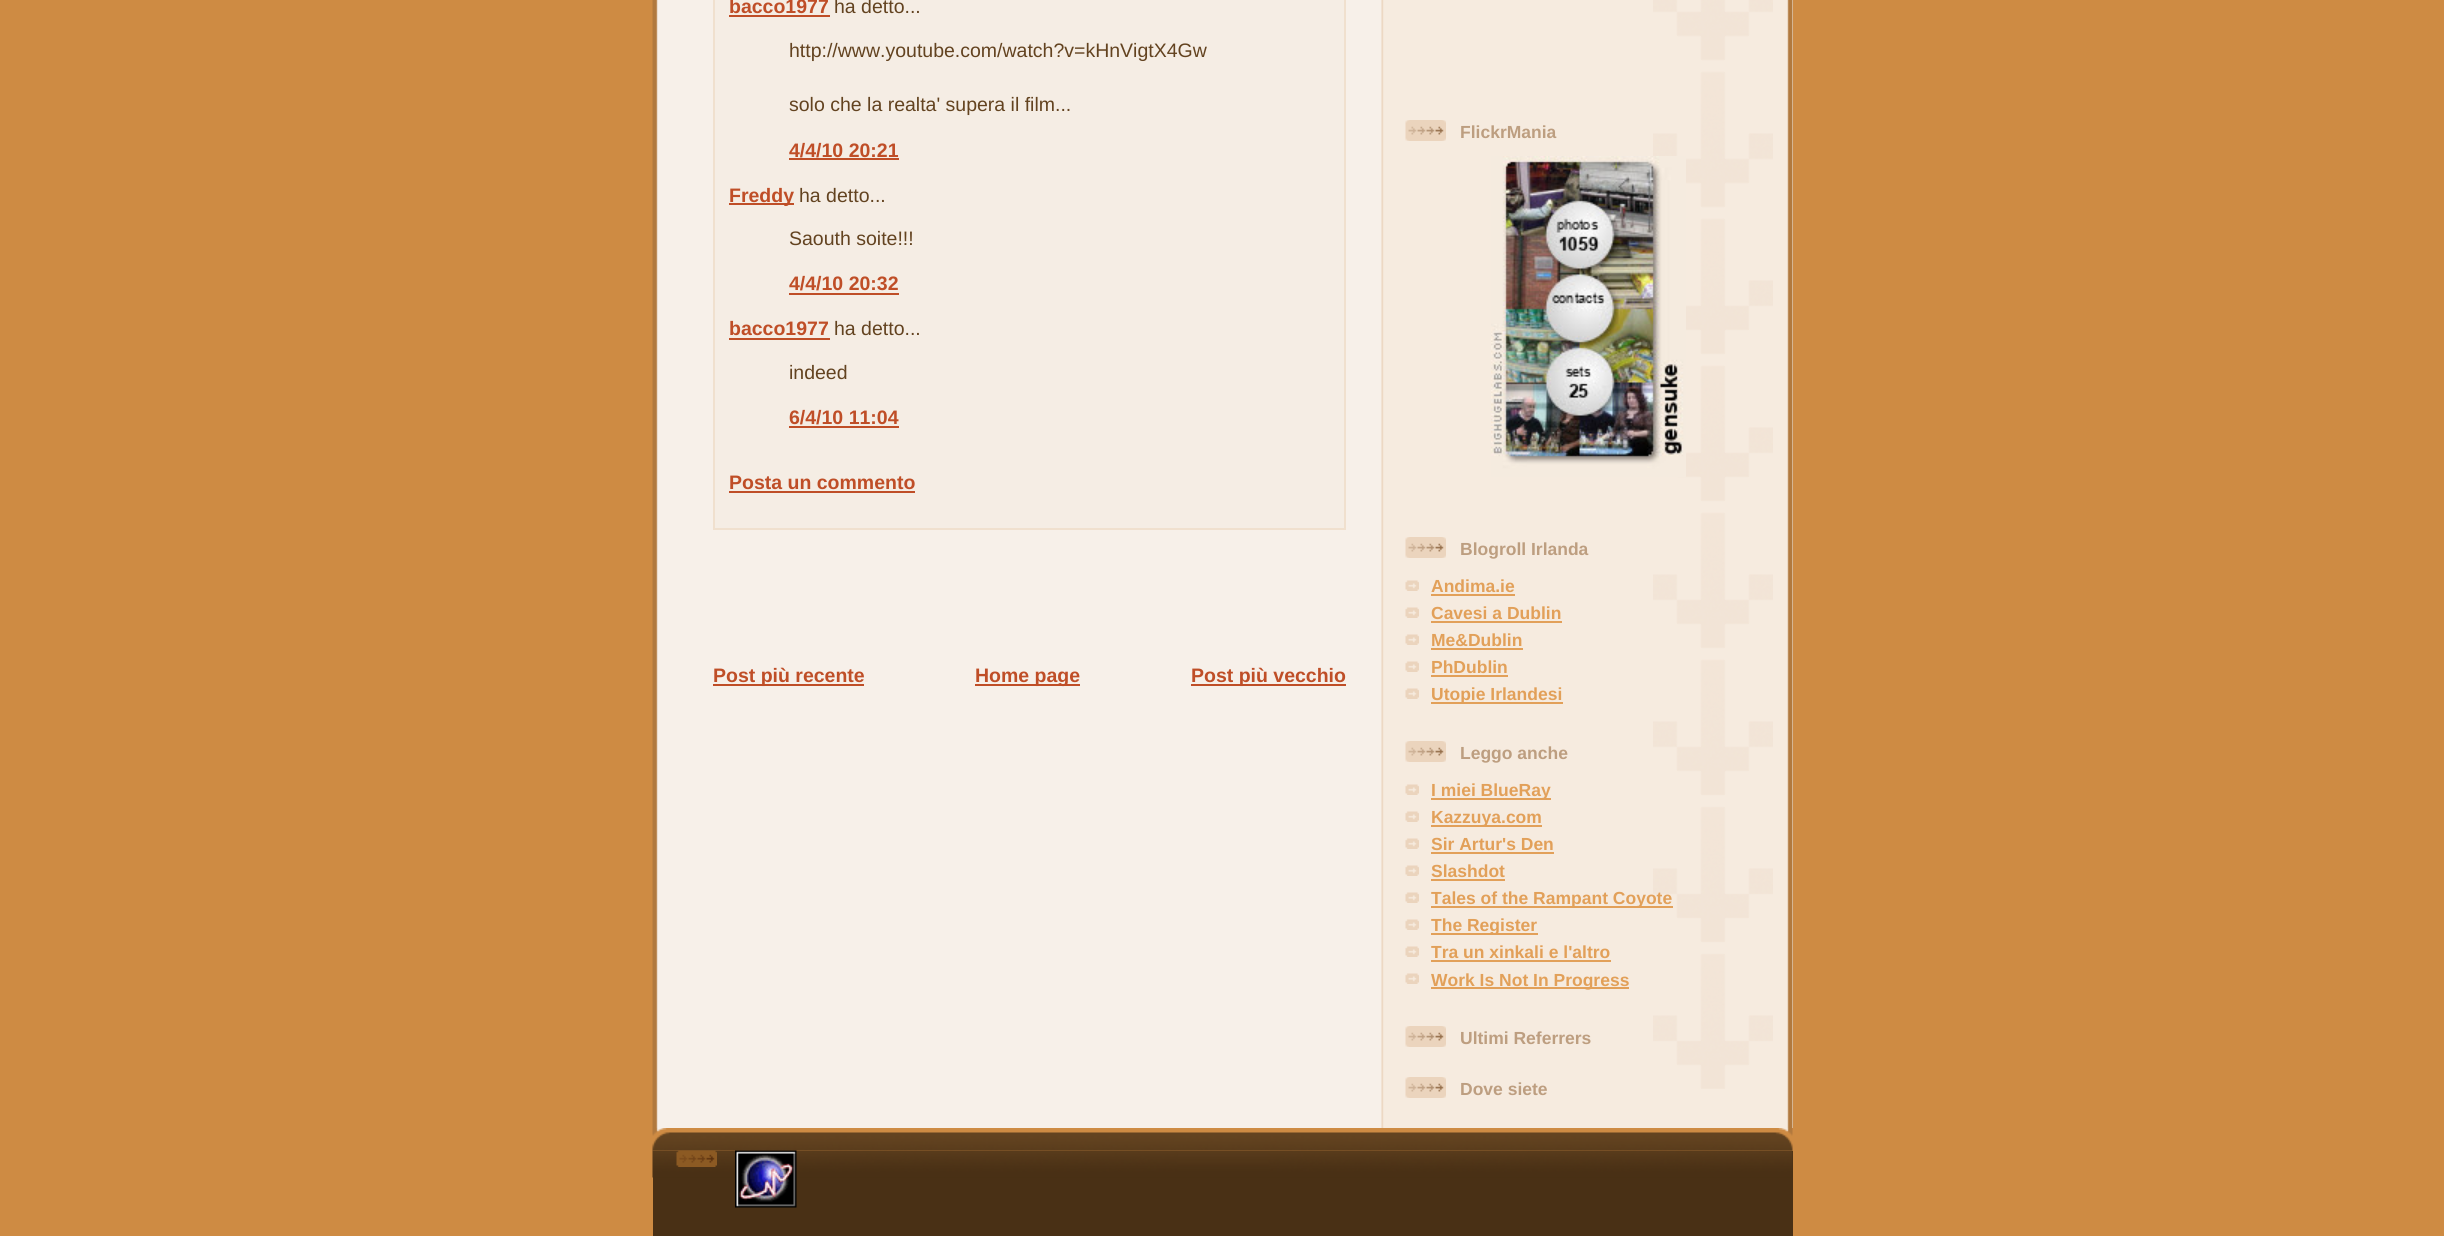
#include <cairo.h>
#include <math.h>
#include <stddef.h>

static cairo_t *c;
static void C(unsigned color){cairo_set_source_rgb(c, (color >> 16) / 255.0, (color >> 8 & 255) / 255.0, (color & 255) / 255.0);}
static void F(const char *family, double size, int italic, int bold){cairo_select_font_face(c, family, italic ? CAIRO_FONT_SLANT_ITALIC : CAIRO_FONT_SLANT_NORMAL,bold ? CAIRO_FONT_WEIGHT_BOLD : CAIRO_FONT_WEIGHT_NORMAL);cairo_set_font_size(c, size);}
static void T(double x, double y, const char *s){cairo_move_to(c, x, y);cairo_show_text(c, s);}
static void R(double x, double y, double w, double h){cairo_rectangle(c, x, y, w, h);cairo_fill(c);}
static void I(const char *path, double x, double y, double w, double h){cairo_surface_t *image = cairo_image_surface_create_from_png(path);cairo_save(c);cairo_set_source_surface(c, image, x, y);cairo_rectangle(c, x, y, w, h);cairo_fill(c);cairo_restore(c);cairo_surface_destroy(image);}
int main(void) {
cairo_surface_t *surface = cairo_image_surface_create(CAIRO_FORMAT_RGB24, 2444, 1236);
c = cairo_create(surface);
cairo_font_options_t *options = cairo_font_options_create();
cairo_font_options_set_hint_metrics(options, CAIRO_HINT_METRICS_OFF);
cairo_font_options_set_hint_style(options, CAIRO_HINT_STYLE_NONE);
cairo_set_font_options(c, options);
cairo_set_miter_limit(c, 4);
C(0xce8b43);
cairo_paint(c);
C(0xf7f0e9);
R(1792,0,1,1128);
I("1.png",652,0,1141,1128);
C(0xf5ede4);
cairo_rectangle(c,714,-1,631,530);
cairo_fill_preserve(c);
C(0xf0e0ce);
cairo_stroke(c);
F("Liberation Sans",19.5,0,1);
C(0xbf4e27);
T(729,13,"bacco1977");
R(729,15,101,2);
F("Liberation Sans",19.5,0,0);
C(0x634320);
T(834,13,"ha detto...");
T(789,57,"http://www.youtube.com/watch?v=kHnVigtX4Gw");
T(789,111,"solo che la realta' supera il film...");
F("Liberation Sans",19.5,0,1);
C(0xbf4e27);
T(789,157,"4/4/10 20:21");
R(789,158,110,2);
R(729,203,65,2);
T(729,202,"Freddy");
F("Liberation Sans",19.5,0,0);
C(0x634320);
T(799,202,"ha detto...");
T(789,245,"Saouth soite!!!");
F("Liberation Sans",19.5,0,1);
C(0xbf4e27);
T(789,290,"4/4/10 20:32");
R(789,293,110,2);
T(729,335,"bacco1977");
R(729,338,101,2);
F("Liberation Sans",19.5,0,0);
C(0x634320);
T(834,335,"ha detto...");
T(789,379,"indeed");
F("Liberation Sans",19.5,0,1);
C(0xbf4e27);
T(789,424,"6/4/10 11:04");
R(789,426,110,2);
T(729,489,"Posta un commento");
R(729,491,186,2);
R(713,684,151,2);
T(713,682,"Post più recente");
R(975,684,105,2);
T(975,682,"Home page");
R(1191,684,155,2);
T(1191,682,"Post più vecchio");
I("2.png",1653,0,120,1089);
I("3.png",1405,120,41,21);
F("Liberation Sans",17.5,0,1);
C(0xbd9e80);
T(1460,138,"FlickrMania");
I("4.png",1491,156,195,321);
I("3.png",1405,537,41,21);
T(1460,555,"Blogroll Irlanda");
I("5.png",1405,580,14,11);
C(0xe2a059);
T(1431,592,"Andima.ie");
R(1431,594,84,2);
I("5.png",1405,607,14,11);
T(1431,619,"Cavesi a Dublin");
R(1431,621,131,2);
I("5.png",1405,634,14,11);
T(1431,646,"Me&Dublin");
R(1431,648,92,2);
I("5.png",1405,661,14,11);
T(1431,673,"PhDublin");
R(1431,675,77,2);
I("5.png",1405,688,14,11);
R(1431,702,132,2);
T(1431,700,"Utopie Irlandesi");
I("3.png",1405,741,41,21);
C(0xbd9e80);
T(1460,759,"Leggo anche");
I("5.png",1405,784,14,11);
C(0xe2a059);
R(1431,798,120,2);
T(1431,796,"I miei BlueRay");
I("5.png",1405,811,14,11);
R(1431,825,111,2);
T(1431,823,"Kazzuya.com");
I("5.png",1405,838,14,11);
T(1431,850,"Sir Artur's Den");
R(1431,852,123,2);
I("5.png",1405,865,14,11);
T(1431,877,"Slashdot");
R(1431,879,74,2);
I("5.png",1405,892,14,11);
R(1431,906,242,2);
T(1431,904,"Tales of the Rampant Coyote");
I("5.png",1405,919,14,11);
R(1431,933,107,2);
T(1431,931,"The Register");
I("5.png",1405,946,14,11);
T(1431,958,"Tra un xinkali e l'altro");
R(1431,960,180,2);
I("5.png",1405,973,14,11);
R(1431,987,198,2);
T(1431,986,"Work Is Not In Progress");
I("3.png",1405,1026,41,21);
C(0xbd9e80);
T(1460,1044,"Ultimi Referrers");
I("3.png",1405,1077,41,21);
T(1460,1095,"Dove siete");
I("6.png",652,1128,1141,23);
C(0x493015);
R(653,1151,1140,85);
I("7.png",652,1150,1141,28);
I("8.png",676,1150,41,17);
I("9.png",735,1150,62,58);
cairo_surface_write_to_png(surface, "o.png");
cairo_font_options_destroy(options);
cairo_destroy(c);
cairo_surface_destroy(surface);
return 0;
}
